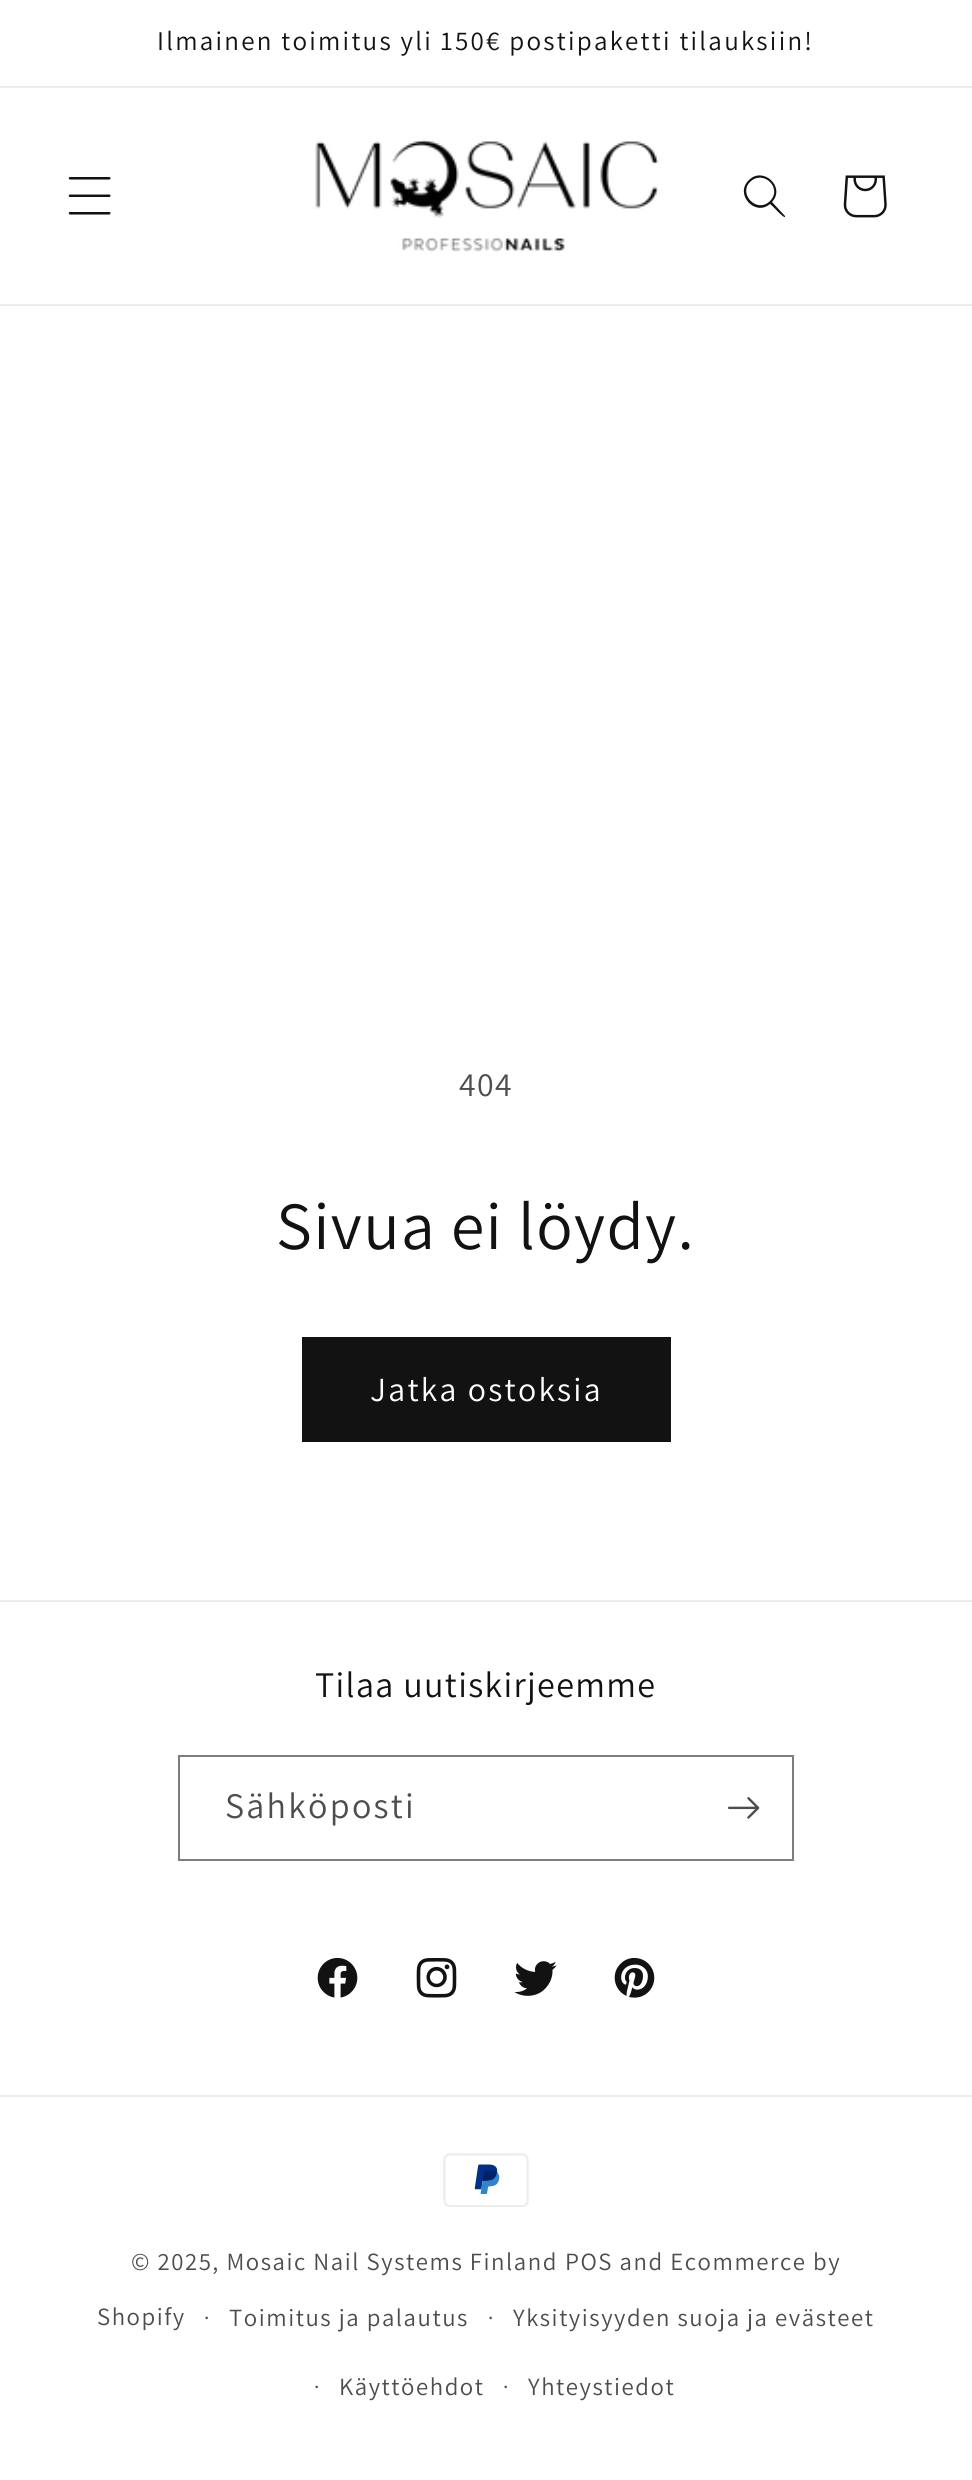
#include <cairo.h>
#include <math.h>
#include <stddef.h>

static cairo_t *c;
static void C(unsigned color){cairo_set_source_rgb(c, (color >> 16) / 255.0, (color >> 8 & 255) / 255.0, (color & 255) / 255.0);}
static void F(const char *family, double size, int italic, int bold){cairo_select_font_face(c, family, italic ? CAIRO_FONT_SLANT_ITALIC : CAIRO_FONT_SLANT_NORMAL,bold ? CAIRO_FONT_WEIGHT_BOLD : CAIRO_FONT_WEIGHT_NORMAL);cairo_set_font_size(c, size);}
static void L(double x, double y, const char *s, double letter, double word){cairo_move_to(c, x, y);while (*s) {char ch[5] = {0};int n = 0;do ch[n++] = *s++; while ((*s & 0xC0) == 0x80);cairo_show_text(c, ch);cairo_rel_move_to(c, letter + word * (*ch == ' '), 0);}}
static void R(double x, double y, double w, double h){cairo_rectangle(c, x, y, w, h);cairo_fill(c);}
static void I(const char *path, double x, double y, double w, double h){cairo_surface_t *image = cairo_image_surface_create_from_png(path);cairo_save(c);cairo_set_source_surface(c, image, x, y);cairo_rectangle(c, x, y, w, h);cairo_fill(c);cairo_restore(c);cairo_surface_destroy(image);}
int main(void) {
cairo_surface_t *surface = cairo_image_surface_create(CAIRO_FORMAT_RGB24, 972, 2480);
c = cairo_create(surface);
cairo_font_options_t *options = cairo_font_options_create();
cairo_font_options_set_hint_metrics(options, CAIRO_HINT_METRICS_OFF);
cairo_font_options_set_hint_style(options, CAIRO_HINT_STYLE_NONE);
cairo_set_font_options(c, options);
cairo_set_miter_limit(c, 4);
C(0xffffff);
cairo_paint(c);
C(0xececec);
R(0,86,972,2);
F("Assistant",27,0,0);
C(0x121212);
L(157,50,"Ilmainen toimitus yli 150€ postipaketti tilauksiin!",2.25,0);
C(0xececec);
R(0,304,972,2);
I("1.png",68,177,43,38);
I("2.png",315,139,344,113);
C(0x121212);
cairo_set_fill_rule(c,CAIRO_FILL_RULE_EVEN_ODD);
cairo_new_path(c);
cairo_move_to(c,770,201);
cairo_curve_to(c,757,214,738,194,750,182);
cairo_curve_to(c,763,169,783,188,770,201);
cairo_close_path(c);
cairo_move_to(c,770,204);
cairo_curve_to(c,755,217,734,194,749,180);
cairo_curve_to(c,763,166,786,187,772,202);
cairo_line_to(c,785,216);
cairo_line_to(c,785,217);
cairo_curve_to(c,783,218,772,205,770,204);
cairo_close_path(c);
cairo_fill(c);
I("3.png",843,175,44,43);
F("Assistant",33.75,0,0);
C(0x4d4d4d);
L(459,1096,"404",1.35,0);
F("Assistant",67.5,0,0);
C(0x121212);
L(276,1249,"Sivua ei löydy.",1.35,0);
R(302,1337,369,105);
F("Assistant",33.75,0,0);
C(0xffffff);
L(370,1401,"Jatka ostoksia",2.25,0);
C(0xececec);
R(0,1600,972,2);
F("Assistant",36,0,0);
C(0x121212);
L(315,1697,"Tilaa uutiskirjeemme",1.35,0);
cairo_rectangle(c,179,1756,614,104);
C(0x7d7d7d);
cairo_stroke(c);
C(0x4d4d4d);
L(225,1818,"Sähköposti",2.25,0);
I("4.png",728,1797,32,22);
I("5.png",317,1957,41,41);
I("6.png",416,1957,41,41);
I("7.png",514,1961,43,35);
I("8.png",614,1957,41,41);
C(0xececec);
R(0,2095,972,2);
I("9.png",443,2153,86,54);
F("Assistant",24.75,0,0);
C(0x4d4d4d);
L(131,2270,"© 2025, Mosaic Nail Systems Finland",1.55,0);
L(565,2270,"POS and Ecommerce by",1.55,0);
L(97,2325,"Shopify",1.55,0);
F("Assistant",22,0,0);
L(204,2325,"·",1.55,0);
F("Assistant",24.75,0,0);
L(229,2326,"Toimitus ja palautus",1.55,0);
F("Assistant",22,0,0);
L(488,2325,"·",1.55,0);
F("Assistant",24.75,0,0);
L(513,2326,"Yksityisyyden suoja ja evästeet",1.55,0);
F("Assistant",22,0,0);
L(314,2394,"·",1.55,0);
F("Assistant",24.75,0,0);
L(339,2395,"Käyttöehdot",1.55,0);
F("Assistant",22,0,0);
L(503,2394,"·",1.55,0);
F("Assistant",24.75,0,0);
L(528,2395,"Yhteystiedot",1.55,0);
cairo_surface_write_to_png(surface, "o.png");
cairo_font_options_destroy(options);
cairo_destroy(c);
cairo_surface_destroy(surface);
return 0;
}
